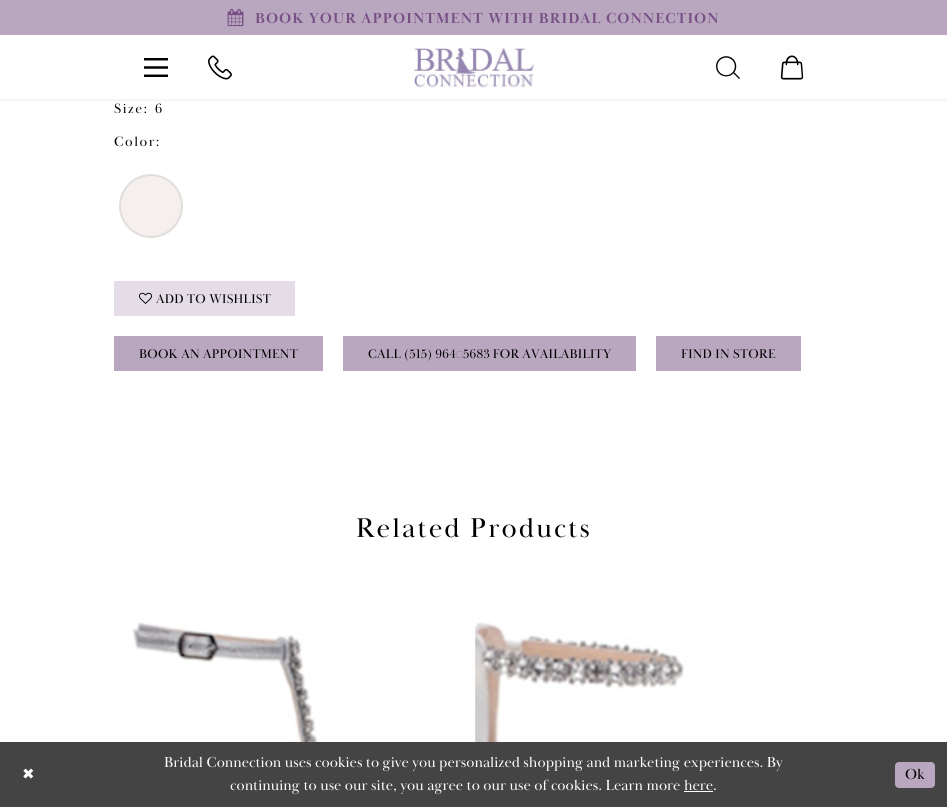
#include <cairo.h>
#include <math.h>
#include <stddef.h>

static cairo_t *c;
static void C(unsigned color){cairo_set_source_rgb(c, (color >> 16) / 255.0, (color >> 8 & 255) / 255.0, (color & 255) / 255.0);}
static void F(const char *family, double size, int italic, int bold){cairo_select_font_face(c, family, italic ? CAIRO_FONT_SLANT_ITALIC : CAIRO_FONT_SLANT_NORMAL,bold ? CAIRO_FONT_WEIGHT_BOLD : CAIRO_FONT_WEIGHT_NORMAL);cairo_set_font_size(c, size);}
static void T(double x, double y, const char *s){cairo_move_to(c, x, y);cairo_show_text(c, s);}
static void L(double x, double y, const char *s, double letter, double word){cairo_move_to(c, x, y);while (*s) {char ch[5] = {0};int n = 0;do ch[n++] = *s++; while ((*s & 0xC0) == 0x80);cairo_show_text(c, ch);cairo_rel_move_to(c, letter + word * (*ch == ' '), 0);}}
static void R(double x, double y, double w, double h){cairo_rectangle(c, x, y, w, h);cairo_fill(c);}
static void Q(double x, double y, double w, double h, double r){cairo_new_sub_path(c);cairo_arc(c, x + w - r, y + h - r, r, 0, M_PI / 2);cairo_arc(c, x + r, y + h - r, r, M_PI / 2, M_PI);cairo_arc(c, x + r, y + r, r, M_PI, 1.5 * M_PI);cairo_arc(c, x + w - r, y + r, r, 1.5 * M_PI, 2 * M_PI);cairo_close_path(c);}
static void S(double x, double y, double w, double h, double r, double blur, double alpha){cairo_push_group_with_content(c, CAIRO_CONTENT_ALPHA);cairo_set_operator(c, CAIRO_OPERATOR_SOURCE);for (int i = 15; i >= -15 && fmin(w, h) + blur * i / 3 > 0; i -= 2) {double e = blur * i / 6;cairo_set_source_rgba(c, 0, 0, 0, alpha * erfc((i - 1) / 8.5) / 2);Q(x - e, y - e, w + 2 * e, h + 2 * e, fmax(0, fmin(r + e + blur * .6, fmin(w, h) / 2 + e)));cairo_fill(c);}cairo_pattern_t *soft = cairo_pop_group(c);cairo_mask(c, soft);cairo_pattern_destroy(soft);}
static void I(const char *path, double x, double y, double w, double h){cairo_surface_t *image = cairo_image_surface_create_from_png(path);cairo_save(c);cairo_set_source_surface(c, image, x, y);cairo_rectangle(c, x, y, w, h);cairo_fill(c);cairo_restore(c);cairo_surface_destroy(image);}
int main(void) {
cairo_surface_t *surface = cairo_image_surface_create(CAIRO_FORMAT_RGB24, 947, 807);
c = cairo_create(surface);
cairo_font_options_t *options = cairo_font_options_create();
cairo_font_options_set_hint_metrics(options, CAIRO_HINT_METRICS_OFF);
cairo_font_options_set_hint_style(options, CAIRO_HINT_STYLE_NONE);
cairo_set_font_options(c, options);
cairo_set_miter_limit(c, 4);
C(0xffffff);
cairo_paint(c);
C(0x4c4c4b);
S(0,1,947,99,0,2,.1);
C(0xffffff);
R(0,35,947,64);
C(0xb9a6bf);
R(0,0,947,35);
I("1.png",227,9,17,18);
F("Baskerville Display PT",15,0,1);
C(0x774f84);
L(255,23,"BOOK YOUR APPOINTMENT WITH BRIDAL CONNECTION",1,0);
I("2.png",144,58,24,19);
I("3.png",208,55,24,25);
I("4.png",414,47,120,41);
I("5.png",716,56,24,23);
I("6.png",780,55,24,25);
F("Baskerville Display PT",14,0,0);
C(0x000000);
L(114,113,"Size:",1.5,0);
L(155,113,"6",1.5,0);
L(114,146,"Color:",1.5,0);
cairo_new_path(c);
cairo_arc(c,151,206,31.5,0,2 * M_PI);
C(0xdedede);
cairo_set_line_width(c,1);
cairo_stroke(c);
C(0xf5f0ed);
cairo_arc(c,151,206,31,0,2 * M_PI);
cairo_fill(c);
cairo_arc(c,151,206,30.5,0,2 * M_PI);
cairo_set_source_rgba(c,0,0,0,0.1);
cairo_stroke(c);
C(0xe4dde7);
R(114,281,181,35);
I("7.png",139,292,13,12);
F("Baskerville Display PT",13,0,0);
C(0x000000);
L(156,303,"ADD TO WISHLIST",.25,0);
C(0xb9a6bf);
R(114,336,209,35);
C(0x000000);
L(139,358,"BOOK AN APPOINTMENT",.25,0);
C(0xb9a6bf);
R(343,336,293,35);
C(0x000000);
L(368,358,"CALL (515) 964‑5683 FOR AVAILABILITY",.25,-.5);
C(0xb9a6bf);
R(656,336,145,35);
C(0x000000);
L(681,358,"FIND IN STORE",.25,0);
F("Baskerville Display PT",28,0,0);
L(356,537,"Related Products",2,0);
I("8.png",99,622,240,120);
I("9.png",475,622,270,120);
C(0x444444);
R(0,742,947,65);
F("DejaVu Sans",15,0,0);
C(0xffffff);
T(22,779,"✖");
F("Baskerville Display PT",15,0,0);
T(164,767,"Bridal Connection uses cookies to give you personalized shopping and marketing experiences. By");
T(230,790,"continuing to use our site, you agree to our use of cookies. Learn more here.");
R(684,791,29,1);
C(0xb9a6bf);
Q(895,762,40,26,4);
cairo_fill(c);
C(0x000000);
T(905,779,"Ok");
cairo_surface_write_to_png(surface, "o.png");
cairo_font_options_destroy(options);
cairo_destroy(c);
cairo_surface_destroy(surface);
return 0;
}
